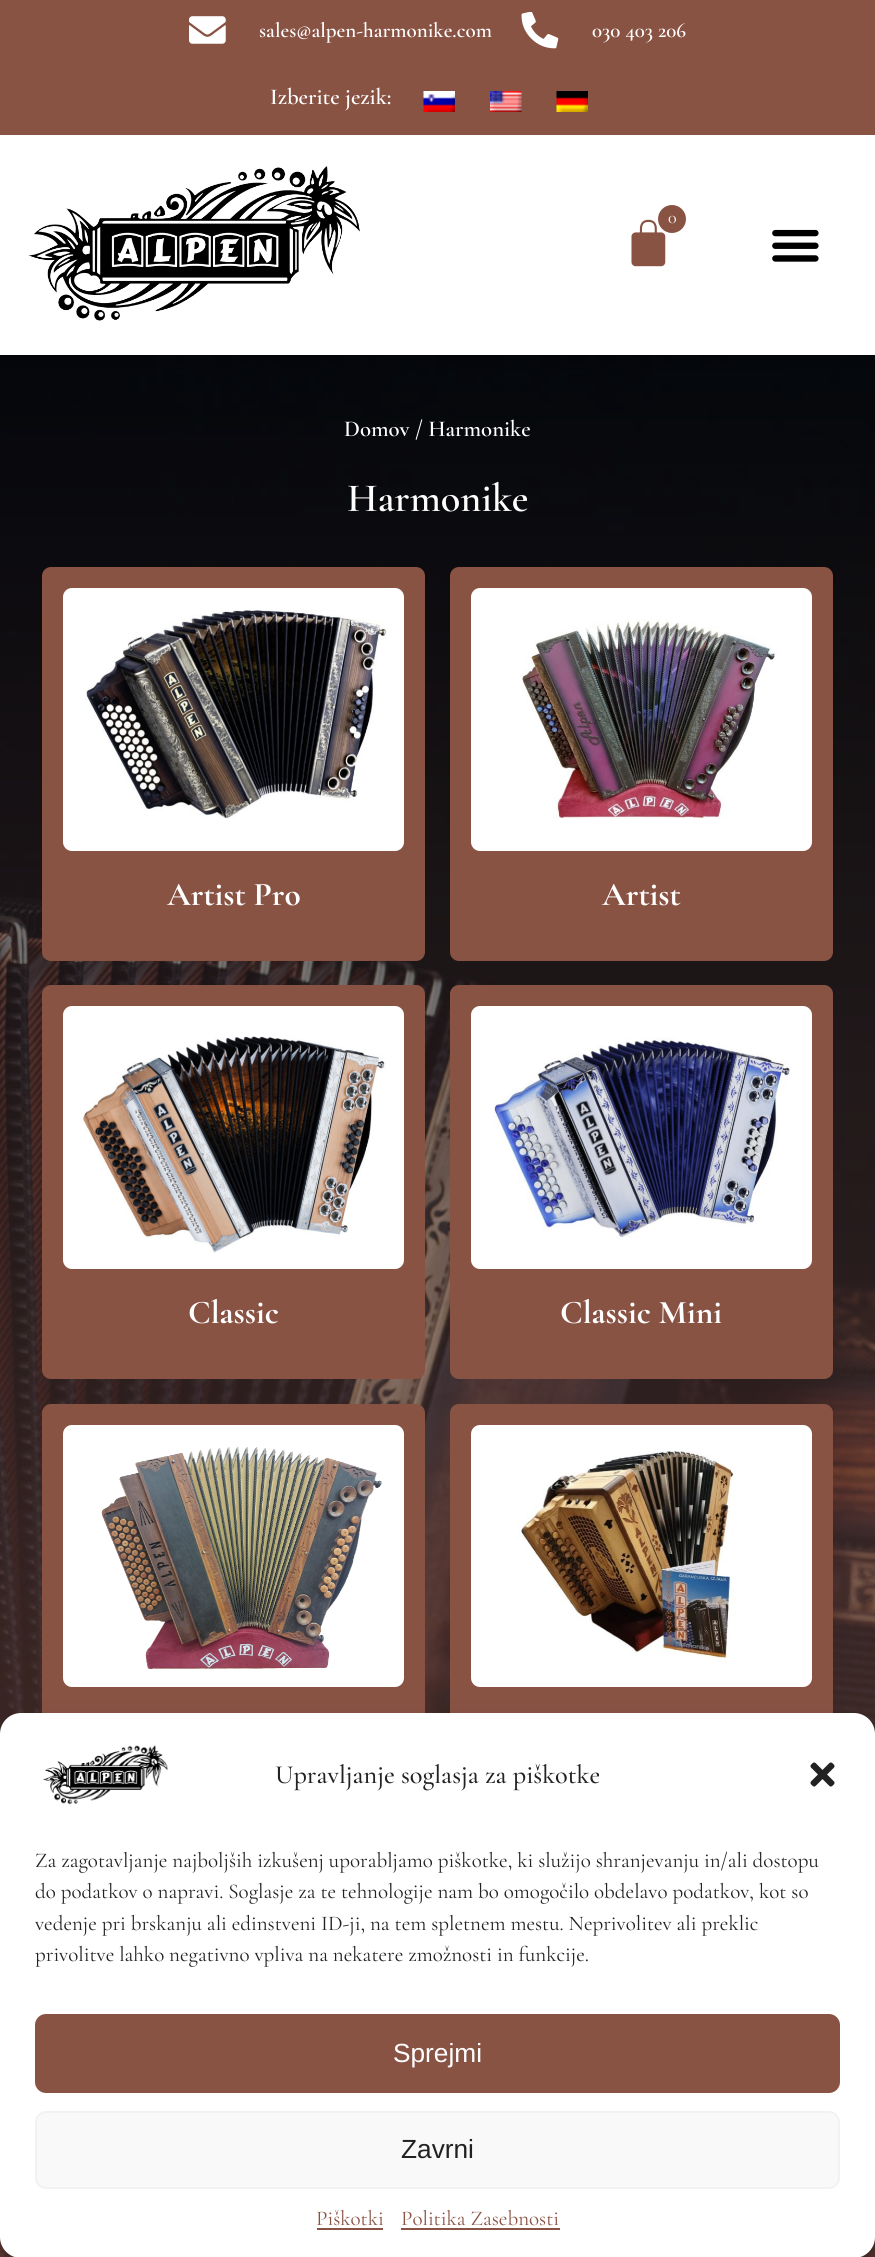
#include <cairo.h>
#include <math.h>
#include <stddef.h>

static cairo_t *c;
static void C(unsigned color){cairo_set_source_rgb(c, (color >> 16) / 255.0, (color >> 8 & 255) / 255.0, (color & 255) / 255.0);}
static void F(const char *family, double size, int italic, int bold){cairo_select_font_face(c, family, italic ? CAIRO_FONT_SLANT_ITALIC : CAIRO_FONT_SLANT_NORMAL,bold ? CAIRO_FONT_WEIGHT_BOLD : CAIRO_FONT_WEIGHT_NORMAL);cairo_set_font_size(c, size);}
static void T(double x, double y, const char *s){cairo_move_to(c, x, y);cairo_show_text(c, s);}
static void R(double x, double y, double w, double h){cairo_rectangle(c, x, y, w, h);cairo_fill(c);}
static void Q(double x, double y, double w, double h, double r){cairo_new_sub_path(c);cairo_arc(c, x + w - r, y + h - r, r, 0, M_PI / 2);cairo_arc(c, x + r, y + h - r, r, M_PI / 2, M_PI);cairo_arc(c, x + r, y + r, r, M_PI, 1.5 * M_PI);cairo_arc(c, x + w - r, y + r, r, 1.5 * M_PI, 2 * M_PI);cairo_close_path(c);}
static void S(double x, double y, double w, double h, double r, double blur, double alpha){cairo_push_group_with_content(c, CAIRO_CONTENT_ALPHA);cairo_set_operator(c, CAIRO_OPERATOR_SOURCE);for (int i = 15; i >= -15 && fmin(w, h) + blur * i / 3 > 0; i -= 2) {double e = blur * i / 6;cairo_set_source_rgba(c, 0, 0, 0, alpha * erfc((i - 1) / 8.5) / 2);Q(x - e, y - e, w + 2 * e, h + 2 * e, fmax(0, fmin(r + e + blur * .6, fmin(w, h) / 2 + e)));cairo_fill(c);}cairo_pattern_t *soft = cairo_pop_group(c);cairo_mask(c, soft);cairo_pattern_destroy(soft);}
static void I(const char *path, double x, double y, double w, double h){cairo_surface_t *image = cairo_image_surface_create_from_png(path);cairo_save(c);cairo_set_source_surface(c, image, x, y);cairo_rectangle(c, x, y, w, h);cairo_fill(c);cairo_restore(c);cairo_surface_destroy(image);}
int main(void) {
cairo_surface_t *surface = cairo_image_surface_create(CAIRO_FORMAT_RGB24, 875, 2257);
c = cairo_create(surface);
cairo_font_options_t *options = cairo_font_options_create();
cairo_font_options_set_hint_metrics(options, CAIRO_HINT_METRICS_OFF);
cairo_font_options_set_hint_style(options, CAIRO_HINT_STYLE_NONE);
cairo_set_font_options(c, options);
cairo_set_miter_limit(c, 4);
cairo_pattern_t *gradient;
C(0xffffff);
cairo_paint(c);
C(0x895344);
R(0,0,875,135);
I("1.png",189,16,37,28);
F("Cormorant Garamond SemiBold",21,0,0);
C(0xffffff);
T(259,37,"sales@alpen-harmonike.com");
I("2.png",521,12,38,37);
T(592,37,"030 403 206");
F("Cormorant Garamond SemiBold",22.75,0,0);
T(270,104,"Izberite jezik:");
I("3.png",423,91,32,21);
I("4.png",490,91,32,21);
I("5.png",556,91,32,21);
I("6.png",28,166,332,155);
I("7.png",631,219,35,48);
C(0x895344);
cairo_arc(c,672,219,14,0,2 * M_PI);
cairo_fill(c);
F("Cormorant Garamond",18,0,0);
C(0xffffff);
T(668,223,"0");
I("8.png",772,229,47,33);
gradient = cairo_pattern_create_linear(437,355,438,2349);
cairo_pattern_add_color_stop_rgba(gradient,0,0,0,0,1);
cairo_pattern_add_color_stop_rgba(gradient,1,0.537,0.325,0.267,1);
cairo_set_source(c,gradient);
cairo_pattern_destroy(gradient);
R(0,355,875,1902);
I("9.png",0,355,875,1902);
F("Cormorant Garamond SemiBold",22.75,0,0);
C(0xffffff);
T(344,436,"Domov / Harmonike");
F("Cormorant Garamond SemiBold",40.25,0,0);
T(347,511,"Harmonike");
C(0x895344);
Q(42,567,383,394,9);
cairo_fill(c);
C(0xffffff);
Q(63,588,341,263,9);
cairo_fill(c);
I("10.png",85,610,302,209);
F("Cormorant Garamond",33.25,0,1);
T(167,905,"Artist Pro");
C(0x895344);
Q(450,567,383,394,9);
cairo_fill(c);
C(0xffffff);
Q(471,588,341,263,9);
cairo_fill(c);
I("11.png",521,619,256,200);
T(602,905,"Artist");
C(0x895344);
Q(42,985,383,394,9);
cairo_fill(c);
C(0xffffff);
Q(63,1006,341,263,9);
cairo_fill(c);
I("12.png",81,1036,305,217);
T(188,1323,"Classic");
C(0x895344);
Q(450,985,383,394,9);
cairo_fill(c);
C(0xffffff);
Q(471,1006,341,263,9);
cairo_fill(c);
I("13.png",493,1037,297,201);
T(560,1323,"Classic Mini");
C(0x895344);
Q(42,1404,383,393,9);
cairo_fill(c);
C(0xffffff);
Q(63,1425,341,262,9);
cairo_fill(c);
I("14.png",101,1446,281,223);
C(0x895344);
Q(450,1404,383,393,9);
cairo_fill(c);
C(0xffffff);
Q(471,1425,341,262,9);
cairo_fill(c);
I("15.png",518,1447,218,217);
C(0x000000);
S(0,1724,875,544,21,5,.23);
S(0,1731,875,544,21,17.5,.19);
C(0xffffff);
Q(0,1713,875,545,21);
cairo_fill(c);
I("16.png",43,1745,125,60);
F("Cormorant Garamond Medium",26.25,0,0);
C(0x222222);
T(275,1783,"Upravljanje soglasja za piškotke");
I("17.png",810,1762,25,25);
F("Cormorant Garamond",21,0,0);
T(35,1867,"Za zagotavljanje najboljših izkušenj uporabljamo piškotke, ki služijo shranjevanju in/ali dostopu");
T(35,1898,"do podatkov o napravi. Soglasje za te tehnologije nam bo omogočilo obdelavo podatkov, kot so");
T(35,1930,"vedenje pri brskanju ali edinstveni ID-ji, na tem spletnem mestu. Neprivolitev ali preklic");
T(35,1961,"privolitve lahko negativno vpliva na nekatere zmožnosti in funkcije.");
C(0x895344);
Q(36,2015,803,77,10);
cairo_fill_preserve(c);
cairo_stroke(c);
F("Liberation Sans",26.25,0,0);
C(0xffffff);
T(393,2062,"Sprejmi");
C(0xf9f9f9);
Q(36,2112,803,76,10);
cairo_fill_preserve(c);
C(0xf2f2f2);
cairo_stroke(c);
C(0x222222);
T(401,2158,"Zavrni");
F("Cormorant Garamond",21,0,0);
C(0x895344);
T(316,2225,"Piškotki");
R(317,2228,66,2);
T(401,2225,"Politika Zasebnosti");
R(401,2228,159,2);
cairo_surface_write_to_png(surface, "o.png");
cairo_font_options_destroy(options);
cairo_destroy(c);
cairo_surface_destroy(surface);
return 0;
}
